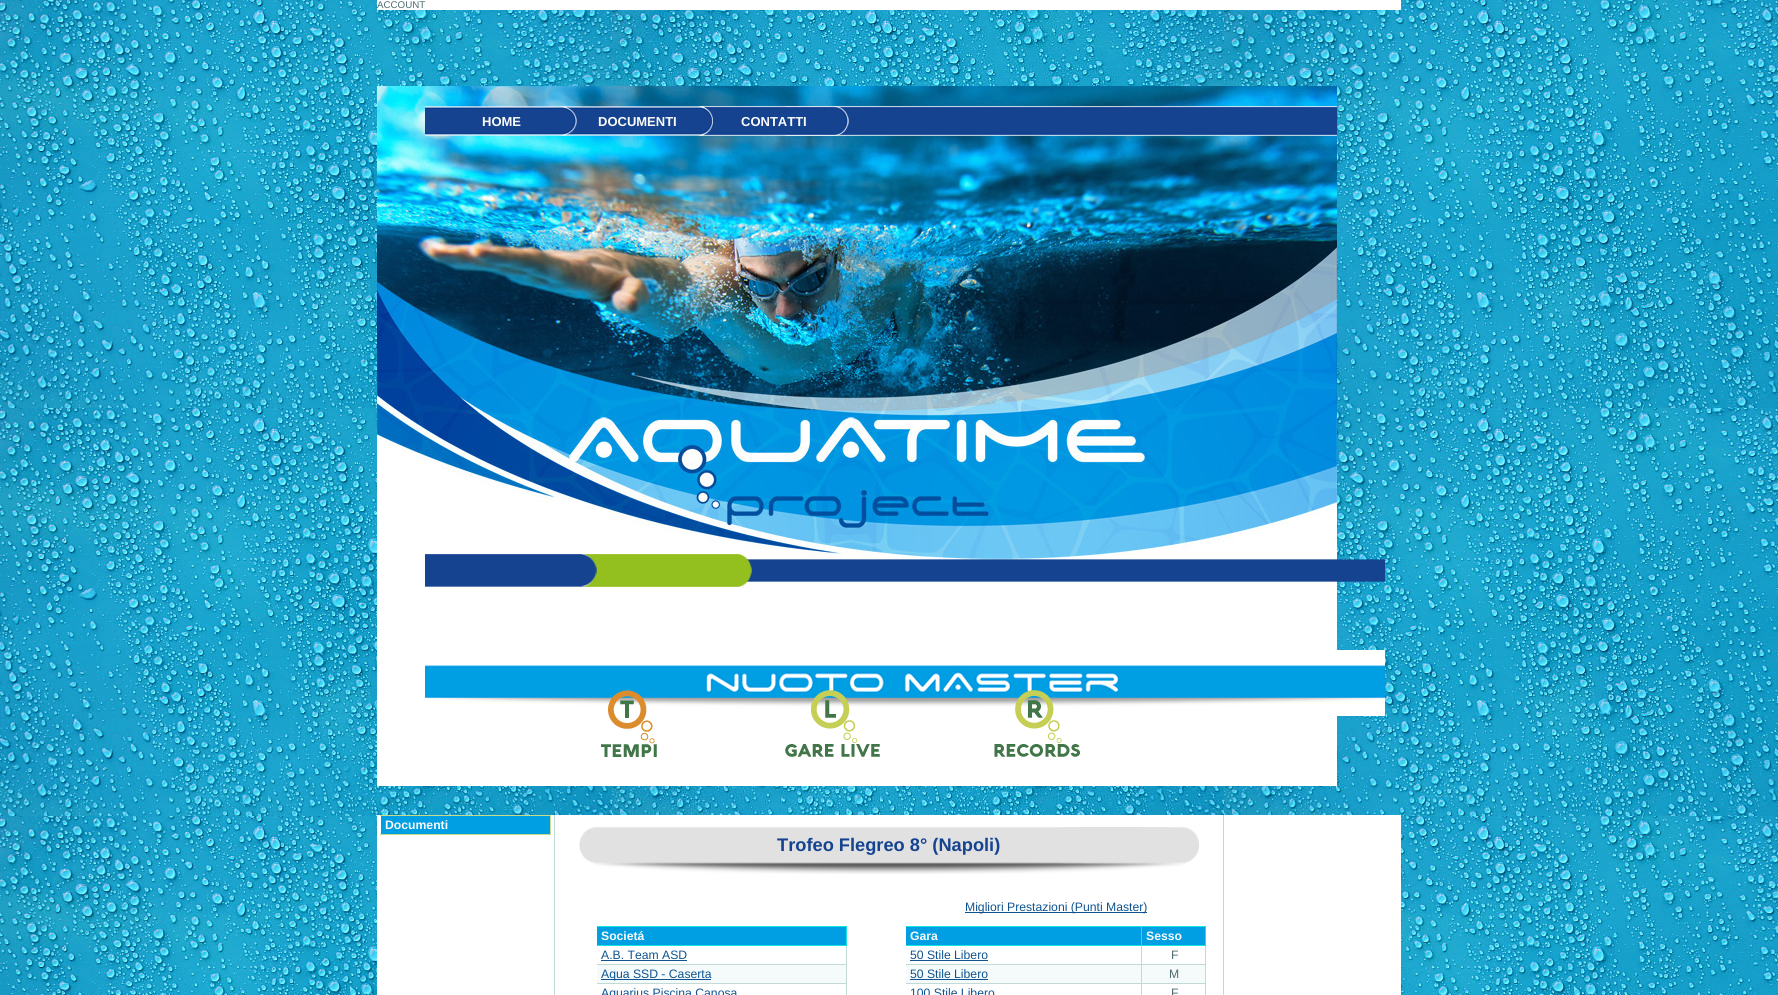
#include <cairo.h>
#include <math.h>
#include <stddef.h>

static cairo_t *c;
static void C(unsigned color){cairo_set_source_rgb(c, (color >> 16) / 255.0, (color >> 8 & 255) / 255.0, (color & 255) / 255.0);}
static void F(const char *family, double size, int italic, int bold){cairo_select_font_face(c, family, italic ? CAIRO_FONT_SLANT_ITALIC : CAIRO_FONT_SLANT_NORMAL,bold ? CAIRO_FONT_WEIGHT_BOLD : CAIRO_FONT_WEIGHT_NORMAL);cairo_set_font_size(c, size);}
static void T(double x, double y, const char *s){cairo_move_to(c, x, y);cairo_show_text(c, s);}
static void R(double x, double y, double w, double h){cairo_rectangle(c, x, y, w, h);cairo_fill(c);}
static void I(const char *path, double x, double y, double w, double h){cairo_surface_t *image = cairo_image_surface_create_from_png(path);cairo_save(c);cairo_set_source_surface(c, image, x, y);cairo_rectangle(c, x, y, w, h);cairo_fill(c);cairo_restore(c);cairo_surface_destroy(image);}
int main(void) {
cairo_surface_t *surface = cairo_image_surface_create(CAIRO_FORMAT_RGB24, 1778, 995);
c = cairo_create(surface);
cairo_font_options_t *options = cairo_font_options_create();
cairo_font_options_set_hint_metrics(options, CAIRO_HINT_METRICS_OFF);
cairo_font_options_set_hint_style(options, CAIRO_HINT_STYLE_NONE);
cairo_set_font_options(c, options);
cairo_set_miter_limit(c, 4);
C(0xffffff);
cairo_paint(c);
I("1.png",0,0,1778,995);
C(0xffffff);
R(377,0,1024,10);
F("Liberation Sans",9.75,0,0);
C(0x4f6b72);
T(377,8,"ACCOUNT");
I("2.png",377,86,960,700);
I("6.png",785,106,552,30);
I("5.png",697,106,152,30);
I("4.png",561,106,152,30);
I("3.png",425,106,152,30);
F("Liberation Sans",13,0,1);
C(0xfafafa);
T(482,126,"HOME");
T(598,126,"DOCUMENTI");
T(741,126,"CONTATTI");
I("9.png",746,559,639,23);
I("8.png",581,554,171,33);
I("7.png",425,554,172,33);
I("10.png",425,650,960,66);
I("11.png",601,690,56,67);
I("12.png",785,690,95,67);
I("13.png",994,690,86,67);
C(0xffffff);
R(377,815,1024,180);
C(0x009ee2);
R(381,816,169,18);
C(0xc8da8e);
R(380,815,171,1);
R(550,815,1,20);
R(380,834,171,1);
F("Liberation Sans",12.2,0,1);
C(0xfafafa);
T(385,829,"Documenti");
C(0xc1dad7);
R(1223,815,1,180);
R(554,815,1,180);
I("14.png",579,827,620,47);
F("Liberation Sans",18.25,0,1);
C(0x154390);
T(777,851,"Trofeo Flegreo 8° (Napoli)");
C(0x009ee2);
R(597,927,249,18);
C(0x17e3e3);
R(597,926,250,1);
C(0xc1dad7);
R(846,945,1,50);
C(0x17e3e3);
R(846,926,1,20);
R(597,945,250,1);
F("Liberation Sans",12.2,0,1);
C(0xfafafa);
T(601,940,"Societá");
C(0xc1dad7);
R(597,964,250,1);
F("Liberation Sans",12.2,0,0);
C(0x0f5491);
T(601,959,"A.B. Team ASD");
R(601,960,86,1);
C(0xf5fafa);
R(597,965,249,18);
C(0xc1dad7);
R(597,983,250,1);
C(0x0f5491);
R(601,979,110,1);
T(601,978,"Aqua SSD - Caserta");
T(601,997,"Aquarius Piscina Canosa");
R(965,912,182,1);
T(965,911,"Migliori Prestazioni (Punti Master)");
C(0x009ee2);
R(906,927,235,18);
C(0x17e3e3);
R(906,926,300,1);
C(0xc1dad7);
R(1205,945,1,50);
C(0x17e3e3);
R(1205,926,1,20);
C(0xc1dad7);
R(1141,983,1,12);
R(1141,983,65,1);
R(1141,964,1,20);
R(1141,964,65,1);
R(1141,945,1,20);
C(0x17e3e3);
R(1141,945,65,1);
R(1141,926,1,20);
R(906,945,236,1);
F("Liberation Sans",12.2,0,1);
C(0xfafafa);
T(910,940,"Gara");
C(0x009ee2);
R(1142,927,63,18);
C(0xfafafa);
T(1146,940,"Sesso");
C(0xc1dad7);
R(906,964,236,1);
F("Liberation Sans",12.2,0,0);
C(0x0f5491);
T(910,959,"50 Stile Libero");
R(910,960,78,1);
C(0x4f6b72);
T(1171,959,"F");
C(0xf5fafa);
R(906,965,235,18);
C(0xc1dad7);
R(906,983,236,1);
C(0x0f5491);
T(910,978,"50 Stile Libero");
R(910,979,78,1);
C(0xf5fafa);
R(1142,965,63,18);
C(0x4f6b72);
T(1169,978,"M");
C(0x0f5491);
T(910,997,"100 Stile Libero");
C(0x4f6b72);
T(1171,997,"F");
cairo_surface_write_to_png(surface, "o.png");
cairo_font_options_destroy(options);
cairo_destroy(c);
cairo_surface_destroy(surface);
return 0;
}
